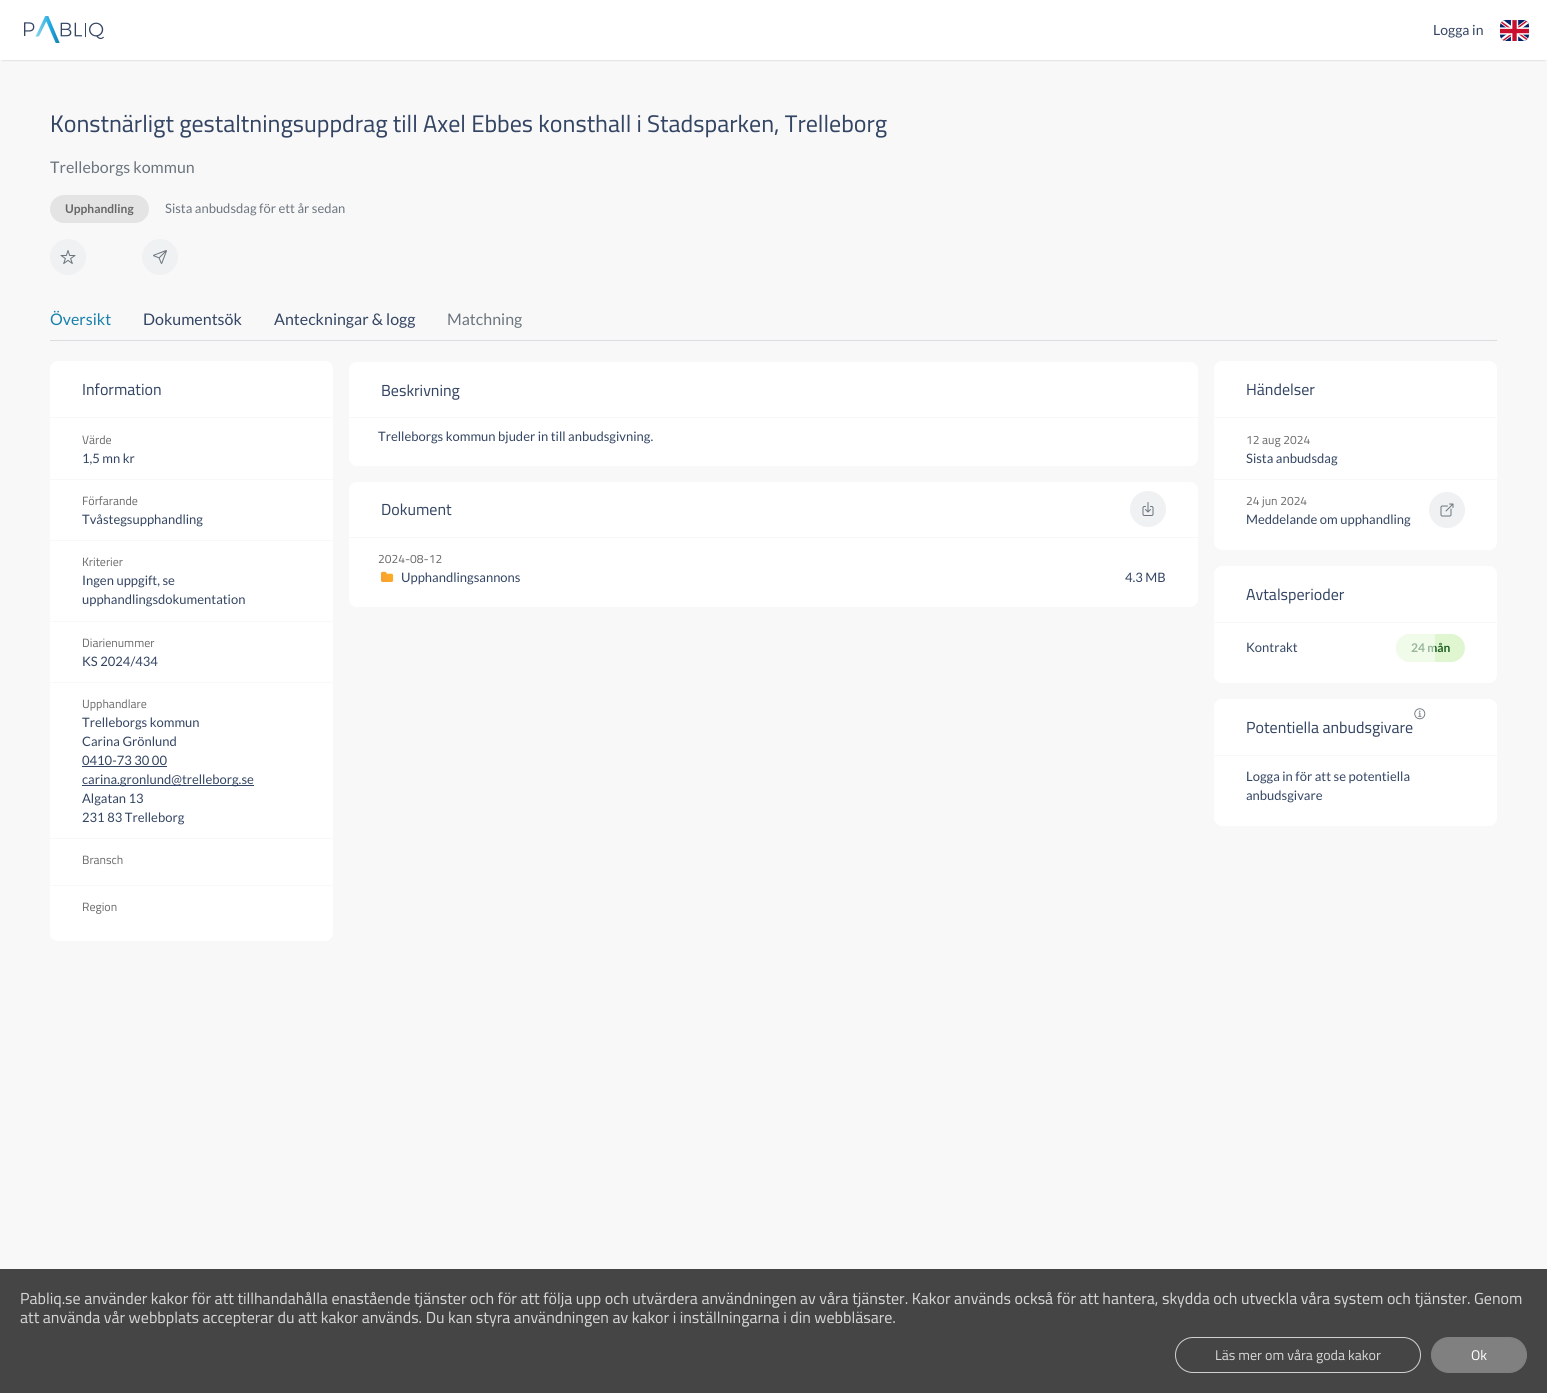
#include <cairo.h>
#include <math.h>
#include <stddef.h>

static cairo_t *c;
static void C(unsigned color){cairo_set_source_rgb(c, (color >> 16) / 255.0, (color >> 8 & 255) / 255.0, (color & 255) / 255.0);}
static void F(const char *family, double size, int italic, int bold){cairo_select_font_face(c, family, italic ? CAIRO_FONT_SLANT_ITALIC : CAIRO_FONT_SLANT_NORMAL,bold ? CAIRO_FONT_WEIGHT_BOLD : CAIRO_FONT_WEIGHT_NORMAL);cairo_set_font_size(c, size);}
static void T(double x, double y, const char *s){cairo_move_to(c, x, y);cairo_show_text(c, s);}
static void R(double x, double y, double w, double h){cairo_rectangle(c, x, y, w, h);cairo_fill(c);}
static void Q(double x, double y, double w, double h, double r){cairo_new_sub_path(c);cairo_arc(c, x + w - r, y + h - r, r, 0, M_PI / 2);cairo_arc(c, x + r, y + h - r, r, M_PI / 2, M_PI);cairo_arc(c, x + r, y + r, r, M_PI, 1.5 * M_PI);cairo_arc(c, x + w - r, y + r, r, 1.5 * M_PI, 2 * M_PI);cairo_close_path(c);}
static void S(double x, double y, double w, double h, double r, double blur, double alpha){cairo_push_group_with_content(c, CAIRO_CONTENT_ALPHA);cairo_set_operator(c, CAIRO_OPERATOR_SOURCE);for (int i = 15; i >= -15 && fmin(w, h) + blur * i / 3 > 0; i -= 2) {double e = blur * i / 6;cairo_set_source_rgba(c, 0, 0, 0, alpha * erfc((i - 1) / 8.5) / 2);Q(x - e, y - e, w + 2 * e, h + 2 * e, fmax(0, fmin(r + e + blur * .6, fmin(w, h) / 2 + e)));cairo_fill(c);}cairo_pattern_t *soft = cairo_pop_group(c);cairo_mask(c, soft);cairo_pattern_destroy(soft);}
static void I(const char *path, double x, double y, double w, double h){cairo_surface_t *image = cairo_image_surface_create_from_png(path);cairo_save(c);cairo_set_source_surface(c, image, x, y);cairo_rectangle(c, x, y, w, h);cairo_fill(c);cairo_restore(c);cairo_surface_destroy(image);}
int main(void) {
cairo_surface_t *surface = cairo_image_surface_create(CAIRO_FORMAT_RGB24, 1547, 1393);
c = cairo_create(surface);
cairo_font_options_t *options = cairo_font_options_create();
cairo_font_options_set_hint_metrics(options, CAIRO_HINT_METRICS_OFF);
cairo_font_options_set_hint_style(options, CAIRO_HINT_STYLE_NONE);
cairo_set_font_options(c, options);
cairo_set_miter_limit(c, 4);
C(0xf8f8f9);
cairo_paint(c);
C(0x000000);
S(2,4,1543,56,0,1,.2);
C(0xffffff);
R(0,0,1547,60);
I("1.png",24,16,80,27);
F("Lato",14,0,0);
C(0x344563);
T(1433,35,"Logga in");
I("2.png",1500,20,29,21);
F("Cairo",24,0,0);
T(50,132,"Konstnärligt gestaltningsuppdrag till Axel Ebbes konsthall i Stadsparken, Trelleborg");
F("Lato",16,0,0);
C(0x6c757d);
T(50,173,"Trelleborgs kommun");
C(0xe4e4e5);
Q(50,195,99,28,14);
cairo_fill(c);
F("Lato",12,0,1);
C(0x676767);
T(65,213,"Upphandling");
F("Lato",13,0,0);
C(0x6c757d);
T(165,213,"Sista anbudsdag för ett år sedan");
C(0xeff1f3);
cairo_new_path(c);
cairo_arc(c,68,257,18,0,2 * M_PI);
cairo_fill(c);
I("3.png",60,250,16,14);
cairo_arc(c,160,257,18,0,2 * M_PI);
cairo_fill(c);
I("4.png",153,250,14,14);
C(0xdadce0);
R(50,340,1447,1);
F("Lato",16,0,0);
C(0x1880ab);
T(50,325,"Översikt");
C(0x344563);
T(143,325,"Dokumentsök");
T(274,325,"Anteckningar & logg");
C(0x6c757d);
T(447,325,"Matchning");
C(0xffffff);
Q(50,361,283,580,8);
cairo_fill(c);
F("Cairo",16,0,0);
C(0x344563);
T(82,395,"Information");
C(0xf8f8f9);
R(50,417,284,1);
F("Cairo",12,0,0);
C(0x6d6d6d);
T(82,444,"Värde");
F("Lato",13,0,0);
C(0x344563);
T(82,463,"1,5 mn kr");
C(0xf8f8f9);
R(50,479,284,1);
F("Cairo",12,0,0);
C(0x6d6d6d);
T(82,505,"Förfarande");
F("Lato",13,0,0);
C(0x344563);
T(82,524,"Tvåstegsupphandling");
C(0xf8f8f9);
R(50,540,284,1);
F("Cairo",12,0,0);
C(0x6d6d6d);
T(82,566,"Kriterier");
F("Lato",13,0,0);
C(0x344563);
T(82,585,"Ingen uppgift, se");
T(82,604,"upphandlingsdokumentation");
C(0xf8f8f9);
R(50,621,284,1);
F("Cairo",12,0,0);
C(0x6d6d6d);
T(82,647,"Diarienummer");
F("Lato",13,0,0);
C(0x344563);
T(82,666,"KS 2024/434");
C(0xf8f8f9);
R(50,682,284,1);
F("Cairo",12,0,0);
C(0x6d6d6d);
T(82,708,"Upphandlare");
F("Lato",13,0,0);
C(0x344563);
T(82,727,"Trelleborgs kommun");
T(82,746,"Carina Grönlund");
T(82,765,"0410-73 30 00");
R(82,766,85,1);
R(82,785,172,1);
T(82,784,"carina.gronlund@trelleborg.se");
T(82,803,"Algatan 13");
T(82,822,"231 83 Trelleborg");
C(0xf8f8f9);
R(50,838,284,1);
F("Cairo",12,0,0);
C(0x6d6d6d);
T(82,864,"Bransch");
C(0xf8f8f9);
R(50,885,284,1);
C(0x6d6d6d);
T(82,911,"Region");
C(0xffffff);
Q(349,362,849,104,8);
cairo_fill(c);
C(0xf8f8f9);
R(349,417,849,1);
F("Cairo",16,0,0);
C(0x344563);
T(381,396,"Beskrivning");
F("Lato",13,0,0);
T(378,441,"Trelleborgs kommun bjuder in till anbudsgivning.");
C(0xffffff);
Q(349,482,849,125,8);
cairo_fill(c);
C(0xf8f8f9);
R(349,537,849,1);
F("Cairo",16,0,0);
C(0x344563);
T(381,515,"Dokument");
C(0xeff1f3);
cairo_new_path(c);
cairo_arc(c,1148,509,18,0,2 * M_PI);
cairo_fill(c);
I("5.png",1142,502,12,14);
F("Cairo",12,0,0);
C(0x6d6d6d);
T(378,563,"2024-08-12");
I("6.png",381,571,13,11);
F("Lato",13,0,0);
C(0x344563);
T(401,582,"Upphandlingsannons");
T(1125,582,"4.3 MB");
C(0xffffff);
Q(1214,361,283,189,8);
cairo_fill(c);
F("Cairo",16,0,0);
C(0x344563);
T(1246,395,"Händelser");
C(0xf8f8f9);
R(1214,417,284,1);
F("Cairo",12,0,0);
C(0x6d6d6d);
T(1246,444,"12 aug 2024");
F("Lato",13,0,0);
C(0x344563);
T(1246,463,"Sista anbudsdag");
C(0xf8f8f9);
R(1214,479,284,1);
F("Cairo",12,0,0);
C(0x6d6d6d);
T(1246,505,"24 jun 2024");
F("Lato",13,0,0);
C(0x344563);
T(1246,524,"Meddelande om upphandling");
C(0xeff1f3);
cairo_new_path(c);
cairo_arc(c,1447,510,18,0,2 * M_PI);
cairo_fill(c);
I("7.png",1440,503,14,14);
C(0xffffff);
Q(1214,566,283,117,8);
cairo_fill(c);
F("Cairo",16,0,0);
C(0x344563);
T(1246,600,"Avtalsperioder");
C(0xf8f8f9);
R(1214,622,284,1);
F("Lato",13,0,0);
C(0x344563);
T(1246,652,"Kontrakt");
C(0xe0f6d0);
Q(1396,634,69,28,14);
cairo_fill(c);
F("Lato",12,0,1);
C(0x1b5e20);
T(1411,652,"24 mån");
cairo_set_source_rgba(c,1,1,1,0.55);
cairo_new_path(c);
cairo_move_to(c,1410,634);
cairo_line_to(c,1435,634);
cairo_line_to(c,1435,662);
cairo_line_to(c,1410,662);
cairo_curve_to(c,1402.5,662,1396,655.5,1396,648);
cairo_curve_to(c,1396,640.5,1402.5,634,1410,634);
cairo_close_path(c);
cairo_fill(c);
C(0xffffff);
Q(1214,699,283,127,8);
cairo_fill(c);
I("8.png",1414,708,12,12);
F("Cairo",16,0,0);
C(0x344563);
T(1246,733,"Potentiella anbudsgivare");
C(0xf8f8f9);
R(1214,755,284,1);
F("Lato",13,0,0);
C(0x344563);
T(1246,781,"Logga in för att se potentiella");
T(1246,800,"anbudsgivare");
C(0x454545);
R(0,1269,1547,124);
F("Cairo",16,0,0);
C(0xd5d5d5);
T(20,1304,"Pabliq.se använder kakor för att tillhandahålla enastående tjänster och för att följa upp och utvärdera användningen av våra tjänster. Kakor används också för att hantera, skydda och utveckla våra system och tjänster. Genom");
T(20,1323,"att använda vår webbplats accepterar du att kakor används. Du kan styra användningen av kakor i inställningarna i din webbläsare.");
Q(1175.5,1337.5,245,35,17.5);
C(0xd1d1d1);
cairo_set_line_width(c,1);
cairo_stroke(c);
F("Cairo",14,0,0);
C(0xd5d5d5);
T(1215,1360,"Läs mer om våra goda kakor");
C(0x808080);
Q(1431.5,1337.5,95,35,17.5);
cairo_fill_preserve(c);
cairo_stroke(c);
C(0xffffff);
T(1471,1360,"Ok");
cairo_surface_write_to_png(surface, "o.png");
cairo_font_options_destroy(options);
cairo_destroy(c);
cairo_surface_destroy(surface);
return 0;
}
